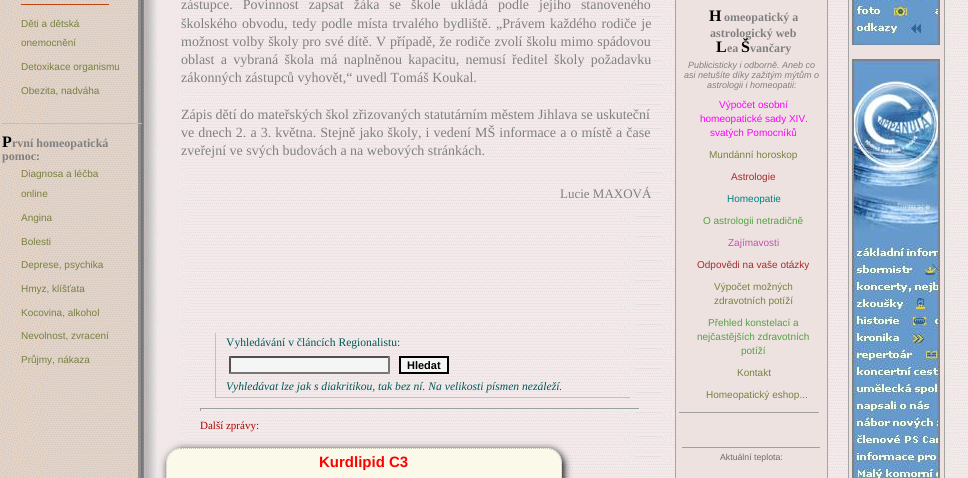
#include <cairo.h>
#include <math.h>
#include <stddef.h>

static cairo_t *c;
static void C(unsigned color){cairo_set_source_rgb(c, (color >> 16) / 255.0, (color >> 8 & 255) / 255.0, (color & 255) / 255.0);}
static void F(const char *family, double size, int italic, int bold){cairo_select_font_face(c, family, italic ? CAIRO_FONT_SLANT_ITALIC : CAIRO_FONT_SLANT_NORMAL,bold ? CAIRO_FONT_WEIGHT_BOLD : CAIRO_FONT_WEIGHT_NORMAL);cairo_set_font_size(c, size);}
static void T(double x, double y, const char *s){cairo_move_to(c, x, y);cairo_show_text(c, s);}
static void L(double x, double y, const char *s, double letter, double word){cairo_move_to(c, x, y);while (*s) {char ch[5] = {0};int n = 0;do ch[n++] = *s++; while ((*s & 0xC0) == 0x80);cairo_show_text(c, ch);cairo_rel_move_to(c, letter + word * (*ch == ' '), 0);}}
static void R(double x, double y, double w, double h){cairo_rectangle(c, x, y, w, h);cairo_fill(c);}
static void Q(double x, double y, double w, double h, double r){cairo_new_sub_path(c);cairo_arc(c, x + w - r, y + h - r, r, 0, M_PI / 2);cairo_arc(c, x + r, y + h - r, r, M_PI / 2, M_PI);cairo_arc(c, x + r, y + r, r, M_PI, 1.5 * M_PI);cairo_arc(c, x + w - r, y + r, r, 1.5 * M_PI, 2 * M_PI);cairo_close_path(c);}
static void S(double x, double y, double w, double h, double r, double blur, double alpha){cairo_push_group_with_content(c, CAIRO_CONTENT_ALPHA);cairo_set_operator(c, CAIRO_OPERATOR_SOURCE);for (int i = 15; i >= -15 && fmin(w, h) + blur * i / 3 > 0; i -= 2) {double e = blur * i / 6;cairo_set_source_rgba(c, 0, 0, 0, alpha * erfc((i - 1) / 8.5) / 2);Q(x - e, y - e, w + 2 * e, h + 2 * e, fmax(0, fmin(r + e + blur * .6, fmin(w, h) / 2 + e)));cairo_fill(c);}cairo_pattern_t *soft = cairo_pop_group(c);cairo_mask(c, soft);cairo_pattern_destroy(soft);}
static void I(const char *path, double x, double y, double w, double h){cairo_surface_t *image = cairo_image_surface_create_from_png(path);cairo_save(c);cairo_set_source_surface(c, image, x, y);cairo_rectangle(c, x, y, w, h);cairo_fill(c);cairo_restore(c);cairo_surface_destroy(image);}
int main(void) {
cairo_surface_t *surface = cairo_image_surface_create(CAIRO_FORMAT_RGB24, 968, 478);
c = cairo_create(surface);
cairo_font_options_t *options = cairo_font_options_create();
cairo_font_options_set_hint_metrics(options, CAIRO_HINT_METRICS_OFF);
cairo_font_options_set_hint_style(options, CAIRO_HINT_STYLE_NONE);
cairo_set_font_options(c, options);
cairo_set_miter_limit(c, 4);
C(0xffffff);
cairo_paint(c);
I("1.png",0,0,968,478);
C(0xbe420e);
R(21,4,88,1);
F("Liberation Sans",10,0,0);
C(0x77813f);
T(21,27,"Děti a dětská");
T(21,46,"onemocnění");
T(21,70,"Detoxikace organismu");
T(21,94,"Obezita, nadváha");
C(0xc0c0c0);
R(2,123,140,1);
F("Liberation Serif",16,0,1);
C(0x000000);
T(2,147,"P");
F("Liberation Serif",12,0,1);
C(0x808080);
T(12,147,"rvní homeopatická");
T(2,160,"pomoc:");
F("Liberation Sans",10,0,0);
C(0x77813f);
T(21,177,"Diagnosa a léčba");
T(21,197,"online");
T(21,221,"Angina");
T(21,245,"Bolesti");
T(21,268,"Deprese, psychika");
T(21,292,"Hmyz, klíšťata");
T(21,316,"Kocovina, alkohol");
T(21,339,"Nevolnost, zvracení");
T(21,363,"Průjmy, nákaza");
F("Liberation Serif",14,0,0);
C(0x808080);
L(181,9,"zástupce. Povinnost zapsat žáka se škole ukládá podle jejího stanoveného",0,6.5);
L(181,28,"školského obvodu, tedy podle místa trvalého bydliště. „Právem každého rodiče je",0,1.4);
L(181,46,"možnost volby školy pro své dítě. V případě, že rodiče zvolí školu mimo spádovou",0,.4);
L(181,64,"oblast a vybraná škola má naplněnou kapacitu, nemusí ředitel školy požadavku",0,2.75);
T(181,82,"zákonných zástupců vyhovět,“ uvedl Tomáš Koukal.");
T(181,119,"Zápis dětí do mateřských škol zřizovaných statutárním městem Jihlava se uskuteční");
L(181,137,"ve dnech 2. a 3. května. Stejně jako školy, i vedení MŠ informace a o místě a čase",0,.6);
T(181,155,"zveřejní ve svých budovách a na webových stránkách.");
F("Liberation Serif",13,0,0);
T(560,198,"Lucie MAXOVÁ");
C(0xc0c0c0);
R(215,397,415,1);
R(215,333,1,65);
F("Liberation Serif",11.6,0,0);
C(0x005757);
T(226,346,"Vyhledávání v článcích Regionalistu:");
C(0xf5f5f5);
R(229,356,161,18);
C(0x4f4f4f);
cairo_new_path(c);
cairo_move_to(c,229,356);
cairo_line_to(c,390,356);
cairo_line_to(c,388,358);
cairo_line_to(c,231,358);
cairo_close_path(c);
cairo_fill(c);
C(0x767676);
cairo_new_path(c);
cairo_move_to(c,390,356);
cairo_line_to(c,390,374);
cairo_line_to(c,388,372);
cairo_line_to(c,388,358);
cairo_close_path(c);
cairo_fill(c);
cairo_new_path(c);
cairo_move_to(c,390,374);
cairo_line_to(c,229,374);
cairo_line_to(c,231,372);
cairo_line_to(c,388,372);
cairo_close_path(c);
cairo_fill(c);
C(0x4f4f4f);
cairo_new_path(c);
cairo_move_to(c,229,374);
cairo_line_to(c,229,356);
cairo_line_to(c,231,358);
cairo_line_to(c,231,372);
cairo_close_path(c);
cairo_fill(c);
C(0xf5f5f5);
cairo_rectangle(c,400,357,48,16);
cairo_fill_preserve(c);
C(0x000000);
cairo_stroke(c);
F("Liberation Sans",11,0,1);
T(407,369,"Hledat");
F("Liberation Serif",11.6,1,0);
C(0x005757);
T(226,390,"Vyhledávat lze jak s diakritikou, tak bez ní. Na velikosti písmen nezáleží.");
C(0x9f9f9f);
R(200,408,440,1);
C(0xeeeeee);
R(639,408,1,3);
R(200,410,440,1);
C(0x9f9f9f);
R(200,408,1,3);
F("Liberation Serif",11,0,0);
C(0xb20000);
T(200,429,"Další zprávy:");
C(0x000000);
S(168,450,396,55,15,4,1);
C(0xfbf9e9);
Q(166,448,396,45,15);
cairo_fill(c);
cairo_new_path(c);
cairo_move_to(c,181,448.5);
cairo_line_to(c,547,448.5);
cairo_curve_to(c,555,448.5,561.5,455,561.5,463);
cairo_line_to(c,561.5,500);
cairo_curve_to(c,561.5,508,555,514.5,547,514.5);
cairo_line_to(c,181,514.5);
cairo_curve_to(c,173,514.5,166.5,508,166.5,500);
cairo_line_to(c,166.5,463);
cairo_curve_to(c,166.5,455,173,448.5,181,448.5);
cairo_close_path(c);
C(0xc0c0c0);
cairo_set_line_width(c,1);
cairo_set_dash(c,(double[]){1,1},2,0);
cairo_stroke(c);
F("Liberation Sans",15,0,1);
C(0xff0000);
T(319,467,"Kurdlipid C3");
C(0xede2e0);
cairo_rectangle(c,675.5,-.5,152,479);
cairo_fill_preserve(c);
C(0xa4a4a4);
cairo_set_dash(c,NULL,0,0);
cairo_stroke(c);
F("Liberation Serif",16,0,1);
C(0x000000);
T(709,21,"H");
F("Liberation Serif",12,0,1);
C(0x808080);
T(724,21,"omeopatický a");
T(710,37,"astrologický web");
F("Liberation Serif",16,0,1);
C(0x000000);
T(716,52,"L");
F("Liberation Serif",12,0,1);
C(0x808080);
T(727,52,"ea");
F("Liberation Serif",16,0,1);
C(0x000000);
T(741,52,"Š");
F("Liberation Serif",12,0,1);
C(0x808080);
T(750,52,"vančary");
F("Liberation Sans",9,1,0);
T(688,68,"Publicisticky i odborně. Aneb co");
T(684,78,"asi netušíte díky zažitým mýtům o");
T(707,88,"astrologii i homeopatii:");
F("Liberation Sans",10,0,0);
C(0xff00ff);
T(719,108,"Výpočet osobní");
T(700,122,"homeopatické sady XIV.");
T(710,136,"svatých Pomocníků");
C(0x77813f);
T(709,158,"Mundánní horoskop");
C(0xa52a2a);
T(731,180,"Astrologie");
C(0x008080);
T(727,202,"Homeopatie");
C(0x54a142);
T(703,224,"O astrologii netradičně");
C(0xc450b2);
T(728,246,"Zajímavosti");
C(0xa52a2a);
T(697,268,"Odpovědi na vaše otázky");
C(0x77813f);
T(714,290,"Výpočet možných");
T(714,304,"zdravotních potíží");
C(0x54a142);
T(708,326,"Přehled konstelací a");
T(697,340,"nejčastějších zdravotních");
T(741,354,"potíží");
C(0x77813f);
T(737,376,"Kontakt");
T(706,398,"Homeopatický eshop...");
C(0x9f9f9f);
R(679,412,141,1);
C(0xeeeeee);
R(819,412,1,1);
C(0x9f9f9f);
R(682,447,139,1);
C(0xeeeeee);
R(820,447,1,1);
F("Liberation Sans",8.75,0,0);
C(0x6a6a6a);
T(720,460,"Aktuální teplota:");
C(0xede2e0);
cairo_rectangle(c,848.5,-.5,96,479);
cairo_fill_preserve(c);
C(0xa4a4a4);
cairo_stroke(c);
I("2.png",852,0,88,45);
I("3.png",852,59,88,419);
cairo_surface_write_to_png(surface, "o.png");
cairo_font_options_destroy(options);
cairo_destroy(c);
cairo_surface_destroy(surface);
return 0;
}
